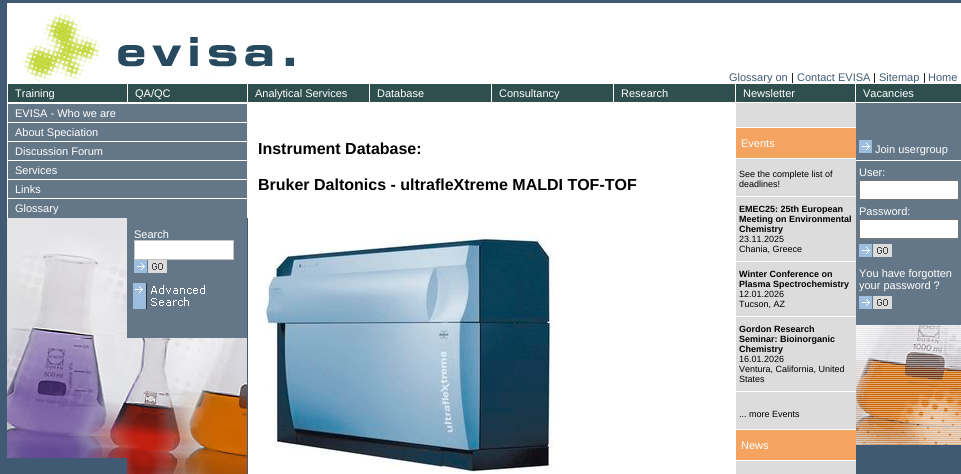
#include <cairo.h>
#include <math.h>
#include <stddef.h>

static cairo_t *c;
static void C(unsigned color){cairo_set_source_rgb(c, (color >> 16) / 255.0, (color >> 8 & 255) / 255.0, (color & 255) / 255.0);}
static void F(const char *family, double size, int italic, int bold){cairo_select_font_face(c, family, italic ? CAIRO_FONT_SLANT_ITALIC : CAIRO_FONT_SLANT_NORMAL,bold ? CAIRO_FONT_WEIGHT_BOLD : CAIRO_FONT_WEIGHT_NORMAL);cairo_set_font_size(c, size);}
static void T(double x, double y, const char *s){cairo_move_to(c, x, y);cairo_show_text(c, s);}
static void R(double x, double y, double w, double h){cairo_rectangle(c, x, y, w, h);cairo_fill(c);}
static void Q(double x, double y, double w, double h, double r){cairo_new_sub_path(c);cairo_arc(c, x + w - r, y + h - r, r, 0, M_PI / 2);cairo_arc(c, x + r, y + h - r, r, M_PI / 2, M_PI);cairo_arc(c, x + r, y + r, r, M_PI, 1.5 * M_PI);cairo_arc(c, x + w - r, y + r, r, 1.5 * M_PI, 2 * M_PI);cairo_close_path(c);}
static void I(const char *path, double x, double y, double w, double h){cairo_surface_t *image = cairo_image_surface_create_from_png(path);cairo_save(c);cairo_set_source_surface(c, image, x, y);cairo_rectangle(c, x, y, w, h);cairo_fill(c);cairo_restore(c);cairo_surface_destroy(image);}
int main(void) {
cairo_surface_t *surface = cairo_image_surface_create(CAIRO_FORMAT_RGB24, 961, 474);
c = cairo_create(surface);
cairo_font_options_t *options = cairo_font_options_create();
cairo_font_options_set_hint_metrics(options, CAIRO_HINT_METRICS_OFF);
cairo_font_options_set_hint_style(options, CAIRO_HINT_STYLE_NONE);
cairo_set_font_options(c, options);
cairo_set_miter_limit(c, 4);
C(0x415a73);
cairo_paint(c);
C(0xffffff);
R(7,3,954,80);
I("1.png",21,13,273,70);
F("Liberation Sans",11,0,0);
C(0x415a73);
T(729,81,"Glossary on");
C(0x000000);
T(791,81,"|");
C(0x415a73);
T(797,81,"Contact EVISA");
C(0x000000);
T(873,81,"|");
C(0x415a73);
T(879,81,"Sitemap");
C(0x000000);
T(923,81,"|");
C(0x415a73);
T(928,81,"Home");
C(0xffffff);
R(7,83,954,20);
C(0x2f4f4f);
R(8,84,119,18);
C(0xffffff);
T(15,97,"Training");
C(0x2f4f4f);
R(128,84,119,18);
C(0xffffff);
T(135,97,"QA/QC");
C(0x2f4f4f);
R(248,84,121,18);
C(0xffffff);
T(255,97,"Analytical Services");
C(0x2f4f4f);
R(370,84,121,18);
C(0xffffff);
T(377,97,"Database");
C(0x2f4f4f);
R(492,84,121,18);
C(0xffffff);
T(499,97,"Consultancy");
C(0x2f4f4f);
R(614,84,121,18);
C(0xffffff);
T(621,97,"Research");
C(0x2f4f4f);
R(736,84,119,18);
C(0xffffff);
T(743,97,"Newsletter");
C(0x2f4f4f);
R(856,84,105,18);
C(0xffffff);
T(863,97,"Vacancies");
R(7,103,241,115);
C(0x647788);
R(8,104,239,18);
C(0xffffff);
T(15,117,"EVISA - Who we are");
C(0x647788);
R(8,123,239,18);
C(0xffffff);
T(15,136,"About Speciation");
C(0x647788);
R(8,142,239,18);
C(0xffffff);
T(15,155,"Discussion Forum");
C(0x647788);
R(8,161,239,18);
C(0xffffff);
T(15,174,"Services");
C(0x647788);
R(8,180,239,18);
C(0xffffff);
T(15,193,"Links");
C(0x647788);
R(8,199,239,19);
C(0xffffff);
T(15,212,"Glossary");
I("2.png",7,218,120,120);
C(0x647788);
R(127,218,120,120);
C(0xffffff);
T(134,238,"Search");
cairo_rectangle(c,134.5,240.5,99,19);
cairo_fill_preserve(c);
C(0xc2c2c2);
cairo_set_line_width(c,1);
cairo_stroke(c);
I("3.png",134,260,33,13);
I("4.png",133,283,72,26);
I("5.png",7,338,120,120);
I("6.png",127,338,120,120);
I("7.png",127,458,120,16);
C(0xffffff);
R(248,103,488,371);
F("Liberation Sans",16,0,1);
C(0x000000);
T(258,154,"Instrument Database:");
T(258,190,"Bruker Daltonics - ultrafleXtreme MALDI TOF-TOF");
I("8.png",258,232,300,241);
C(0xdcdcdc);
R(736,103,120,371);
C(0xffffff);
R(736,127,120,1);
C(0xf4a460);
R(736,128,120,30);
F("Liberation Sans",11,0,0);
C(0xffffff);
T(741,147,"Events");
R(736,158,120,1);
F("Liberation Sans",9,0,0);
C(0x000000);
T(739,177,"See the complete list of");
T(739,187,"deadlines!");
C(0xffffff);
R(736,196,120,1);
F("Liberation Sans",9,0,1);
C(0x000000);
T(739,212,"EMEC25: 25th European");
T(739,222,"Meeting on Environmental");
T(739,232,"Chemistry");
F("Liberation Sans",9,0,0);
T(739,242,"23.11.2025");
T(739,252,"Chania, Greece");
C(0xffffff);
R(736,261,120,1);
F("Liberation Sans",9,0,1);
C(0x000000);
T(739,277,"Winter Conference on");
T(739,287,"Plasma Spectrochemistry");
F("Liberation Sans",9,0,0);
T(739,297,"12.01.2026");
T(739,307,"Tucson, AZ");
C(0xffffff);
R(736,316,120,1);
F("Liberation Sans",9,0,1);
C(0x000000);
T(739,332,"Gordon Research");
T(739,342,"Seminar: Bioinorganic");
T(739,352,"Chemistry");
F("Liberation Sans",9,0,0);
T(739,362,"16.01.2026");
T(739,372,"Ventura, California, United");
T(739,382,"States");
C(0xffffff);
R(736,391,120,1);
C(0x000000);
T(739,417,"... more Events");
C(0xffffff);
R(736,429,120,1);
C(0xf4a460);
R(736,430,120,30);
F("Liberation Sans",11,0,0);
C(0xffffff);
T(741,449,"News");
R(736,460,120,1);
C(0x647788);
R(856,103,105,222);
I("9.png",859,140,13,13);
C(0xffffff);
T(875,153,"Join usergroup");
R(856,160,105,1);
T(859,176,"User:");
Q(859.5,180.5,99,19,1.5);
cairo_fill_preserve(c);
C(0x767676);
cairo_stroke(c);
C(0xffffff);
T(859,215,"Password:");
Q(859.5,219.5,99,19,1.5);
cairo_fill_preserve(c);
C(0x767676);
cairo_stroke(c);
I("3.png",859,244,33,13);
C(0xffffff);
T(859,277,"You have forgotten");
T(859,289,"your password ?");
I("3.png",859,296,33,13);
I("10.png",856,325,105,120);
cairo_surface_write_to_png(surface, "o.png");
cairo_font_options_destroy(options);
cairo_destroy(c);
cairo_surface_destroy(surface);
return 0;
}
